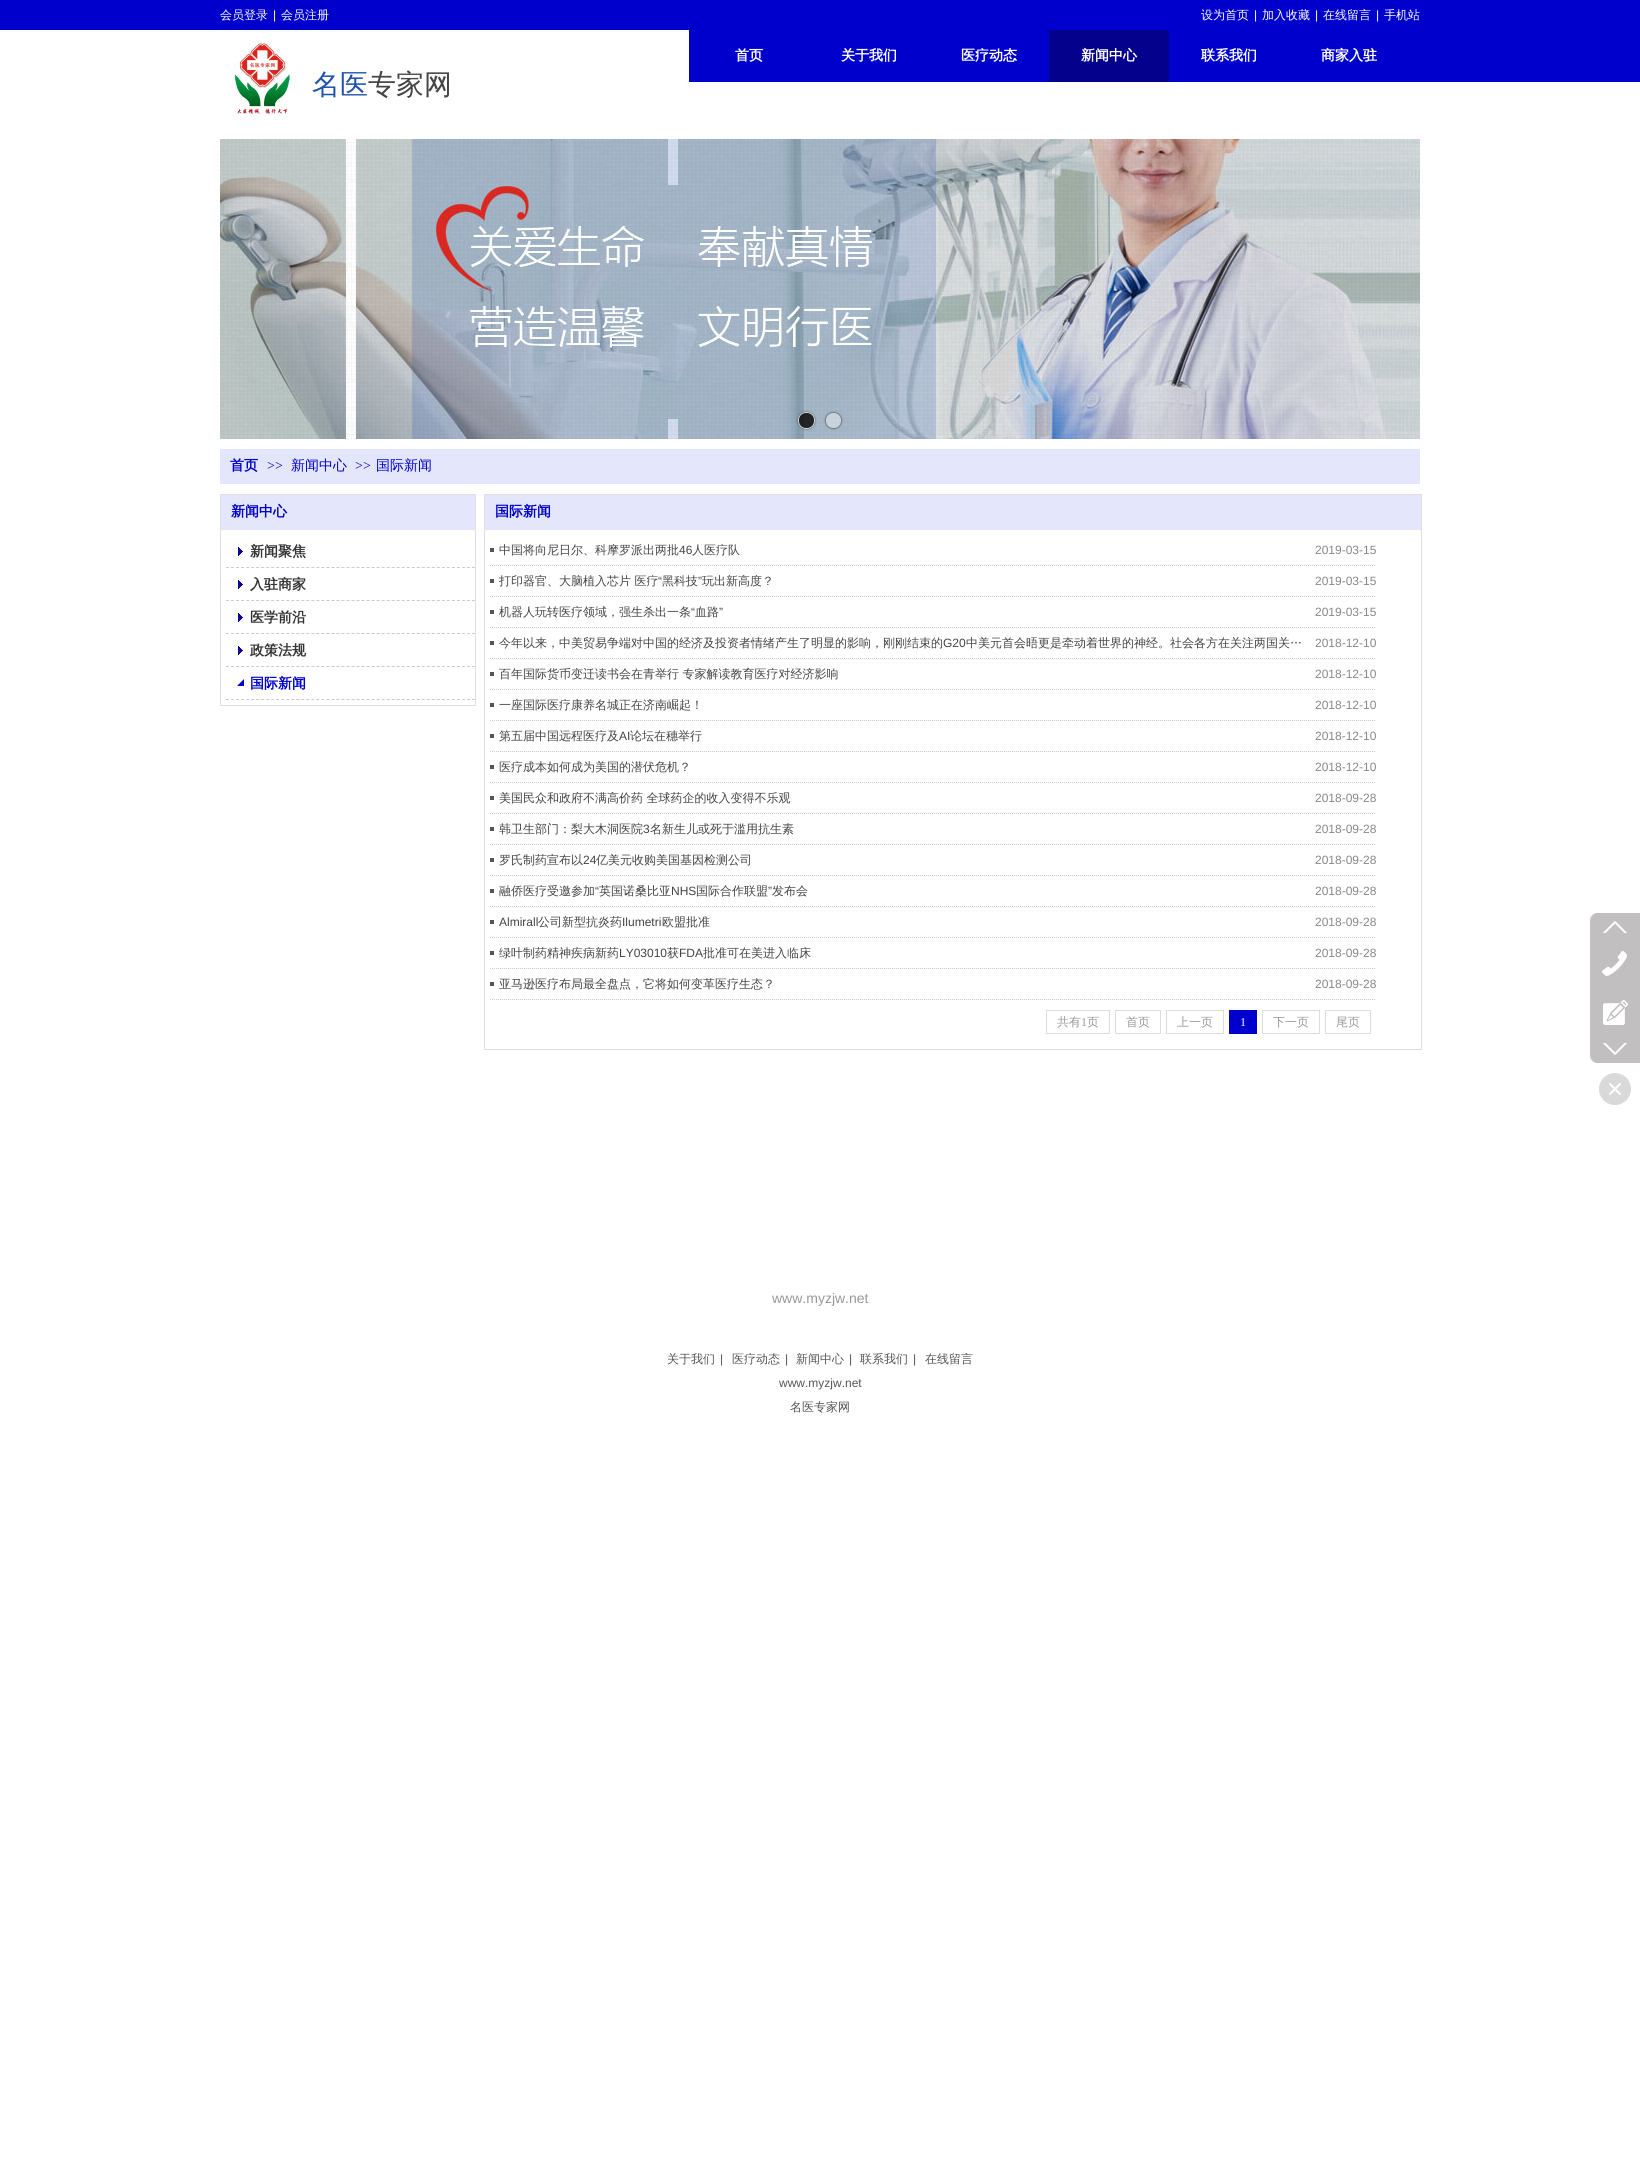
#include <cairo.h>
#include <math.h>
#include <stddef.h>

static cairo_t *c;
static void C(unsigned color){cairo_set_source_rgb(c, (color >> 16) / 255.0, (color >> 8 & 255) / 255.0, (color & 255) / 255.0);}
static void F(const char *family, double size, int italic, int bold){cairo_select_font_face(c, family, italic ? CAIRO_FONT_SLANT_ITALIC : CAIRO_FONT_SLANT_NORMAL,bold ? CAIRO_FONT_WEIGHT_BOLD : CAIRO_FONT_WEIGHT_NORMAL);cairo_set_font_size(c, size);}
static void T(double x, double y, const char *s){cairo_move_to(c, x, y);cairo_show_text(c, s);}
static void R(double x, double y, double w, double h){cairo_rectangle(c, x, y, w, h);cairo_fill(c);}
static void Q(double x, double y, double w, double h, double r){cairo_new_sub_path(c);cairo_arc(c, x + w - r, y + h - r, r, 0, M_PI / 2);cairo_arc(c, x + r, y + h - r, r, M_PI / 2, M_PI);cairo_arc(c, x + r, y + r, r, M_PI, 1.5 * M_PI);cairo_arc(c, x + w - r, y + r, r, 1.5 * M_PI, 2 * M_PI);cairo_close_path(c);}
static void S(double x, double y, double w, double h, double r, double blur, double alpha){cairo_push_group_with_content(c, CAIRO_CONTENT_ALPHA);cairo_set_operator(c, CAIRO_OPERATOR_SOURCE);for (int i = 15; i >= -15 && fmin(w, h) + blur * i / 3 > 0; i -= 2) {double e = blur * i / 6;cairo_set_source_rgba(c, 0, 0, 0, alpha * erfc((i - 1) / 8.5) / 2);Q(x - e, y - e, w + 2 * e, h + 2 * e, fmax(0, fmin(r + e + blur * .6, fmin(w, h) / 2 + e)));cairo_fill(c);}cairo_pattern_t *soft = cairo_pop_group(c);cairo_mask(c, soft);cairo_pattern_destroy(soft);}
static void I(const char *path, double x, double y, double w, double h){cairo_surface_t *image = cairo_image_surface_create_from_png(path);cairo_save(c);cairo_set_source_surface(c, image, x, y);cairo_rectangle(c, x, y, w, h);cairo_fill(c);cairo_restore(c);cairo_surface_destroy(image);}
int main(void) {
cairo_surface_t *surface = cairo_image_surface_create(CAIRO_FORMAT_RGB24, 1640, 2184);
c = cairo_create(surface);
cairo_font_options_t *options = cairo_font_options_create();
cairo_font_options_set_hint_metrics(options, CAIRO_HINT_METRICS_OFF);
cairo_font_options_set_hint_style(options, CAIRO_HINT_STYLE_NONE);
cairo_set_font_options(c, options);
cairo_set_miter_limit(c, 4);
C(0xffffff);
cairo_paint(c);
C(0x0000cc);
R(0,0,1640,30);
F("WenQuanYi Zen Hei Medium",12,0,0);
C(0xffffff);
T(220,19,"会员登录");
F("Liberation Sans",12,0,0);
T(273,19,"|");
F("WenQuanYi Zen Hei Medium",12,0,0);
T(281,19,"会员注册");
T(1201,19,"设为首页");
F("Liberation Sans",12,0,0);
T(1254,19,"|");
F("WenQuanYi Zen Hei Medium",12,0,0);
T(1262,19,"加入收藏");
F("Liberation Sans",12,0,0);
T(1315,19,"|");
F("WenQuanYi Zen Hei Medium",12,0,0);
T(1323,19,"在线留言");
F("Liberation Sans",12,0,0);
T(1376,19,"|");
F("WenQuanYi Zen Hei Medium",12,0,0);
T(1384,19,"手机站");
C(0x0000cc);
R(689,30,951,52);
F("WenQuanYi Zen Hei",14,0,1);
C(0xffffff);
T(735,60,"首页");
T(841,60,"关于我们");
T(961,60,"医疗动态");
C(0x04018c);
R(1049,30,120,52);
C(0xffffff);
T(1081,60,"新闻中心");
T(1201,60,"联系我们");
T(1321,60,"商家入驻");
I("1.png",220,139,1200,300);
cairo_save(c);
cairo_set_fill_rule(c,CAIRO_FILL_RULE_EVEN_ODD);
cairo_new_path(c);
cairo_move_to(c,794,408);
cairo_line_to(c,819,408);
cairo_line_to(c,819,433);
cairo_line_to(c,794,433);
cairo_close_path(c);
cairo_move_to(c,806,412);
cairo_line_to(c,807,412);
cairo_curve_to(c,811.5,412,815,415.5,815,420);
cairo_line_to(c,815,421);
cairo_curve_to(c,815,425.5,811.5,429,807,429);
cairo_line_to(c,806,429);
cairo_curve_to(c,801.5,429,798,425.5,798,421);
cairo_line_to(c,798,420);
cairo_curve_to(c,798,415.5,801.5,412,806,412);
cairo_close_path(c);
cairo_clip(c);
C(0x000000);
S(798,412,17,17,8,1,.48);
cairo_restore(c);
cairo_set_source_rgba(c,0,0,0,0.8);
Q(798,412,17,17,8);
cairo_fill(c);
Q(798.5,412.5,16,16,7.5);
cairo_set_source_rgba(c,1,1,1,0.8);
cairo_set_line_width(c,1);
cairo_stroke(c);
cairo_save(c);
cairo_set_fill_rule(c,CAIRO_FILL_RULE_EVEN_ODD);
cairo_new_path(c);
cairo_move_to(c,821,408);
cairo_line_to(c,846,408);
cairo_line_to(c,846,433);
cairo_line_to(c,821,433);
cairo_close_path(c);
cairo_move_to(c,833,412);
cairo_line_to(c,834,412);
cairo_curve_to(c,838.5,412,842,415.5,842,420);
cairo_line_to(c,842,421);
cairo_curve_to(c,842,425.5,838.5,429,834,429);
cairo_line_to(c,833,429);
cairo_curve_to(c,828.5,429,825,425.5,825,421);
cairo_line_to(c,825,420);
cairo_curve_to(c,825,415.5,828.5,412,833,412);
cairo_close_path(c);
cairo_clip(c);
C(0x000000);
S(825,412,17,17,8,1,.24);
cairo_restore(c);
cairo_set_source_rgba(c,1,1,1,0.4);
Q(825,412,17,17,8);
cairo_fill(c);
Q(825.5,412.5,16,16,7.5);
cairo_set_source_rgba(c,0,0,0,0.4);
cairo_stroke(c);
I("2.png",235,43,55,71);
F("WenQuanYi Zen Hei Medium",28,0,0);
C(0x1e50ae);
T(312,94,"名医");
C(0x444444);
T(368,94,"专家网");
C(0xe4e6fb);
R(220,449,1200,35);
F("WenQuanYi Zen Hei",14,0,1);
C(0x0001cc);
T(230,470,"首页");
F("Liberation Serif",14,0,0);
T(267,470,">>");
F("WenQuanYi Zen Hei Medium",14,0,0);
T(291,470,"新闻中心");
F("Liberation Serif",14,0,0);
T(355,470,">>");
F("WenQuanYi Zen Hei Medium",14,0,0);
T(376,470,"国际新闻");
cairo_rectangle(c,220.5,494.5,255,211);
C(0xe0dfdd);
cairo_stroke(c);
C(0xe4e6fb);
R(221,495,254,35);
F("WenQuanYi Zen Hei",14,0,1);
C(0x0001cc);
T(231,516,"新闻中心");
cairo_save(c);
cairo_rectangle(c,226,535,249,33);
cairo_clip(c);
cairo_new_path(c);
cairo_move_to(c,226,567.5);
cairo_line_to(c,480,567.5);
C(0xcccccc);
cairo_set_dash(c,(double[]){3,2.02},2,0);
cairo_stroke(c);
cairo_restore(c);
I("3.png",238,547,5,9);
C(0x333333);
T(250,556,"新闻聚焦");
cairo_save(c);
cairo_rectangle(c,226,568,249,33);
cairo_clip(c);
cairo_new_path(c);
cairo_move_to(c,226,600.5);
cairo_line_to(c,480,600.5);
C(0xcccccc);
cairo_set_dash(c,(double[]){3,2.02},2,0);
cairo_stroke(c);
cairo_restore(c);
I("3.png",238,580,5,9);
T(250,589,"入驻商家");
cairo_save(c);
cairo_rectangle(c,226,601,249,33);
cairo_clip(c);
cairo_new_path(c);
cairo_move_to(c,226,633.5);
cairo_line_to(c,480,633.5);
C(0xcccccc);
cairo_set_dash(c,(double[]){3,2.02},2,0);
cairo_stroke(c);
cairo_restore(c);
I("3.png",238,613,5,9);
T(250,622,"医学前沿");
cairo_save(c);
cairo_rectangle(c,226,634,249,33);
cairo_clip(c);
cairo_new_path(c);
cairo_move_to(c,226,666.5);
cairo_line_to(c,480,666.5);
C(0xcccccc);
cairo_set_dash(c,(double[]){3,2.02},2,0);
cairo_stroke(c);
cairo_restore(c);
I("3.png",238,646,5,9);
T(250,655,"政策法规");
cairo_save(c);
cairo_rectangle(c,226,667,249,33);
cairo_clip(c);
cairo_new_path(c);
cairo_move_to(c,226,699.5);
cairo_line_to(c,480,699.5);
C(0xcccccc);
cairo_set_dash(c,(double[]){3,2.02},2,0);
cairo_stroke(c);
cairo_restore(c);
I("4.png",237,679,7,7);
C(0x0001cc);
T(250,688,"国际新闻");
cairo_rectangle(c,484.5,494.5,937,555);
C(0xe0dfdd);
cairo_stroke(c);
C(0xe4e6fb);
R(485,495,936,35);
C(0x0001cc);
T(495,516,"国际新闻");
cairo_new_path(c);
cairo_move_to(c,490,565.5);
cairo_line_to(c,1376,565.5);
C(0xcccccc);
cairo_set_dash(c,(double[]){1,1},2,0);
cairo_stroke(c);
C(0x555555);
R(490,548,4,4);
F("WenQuanYi Zen Hei Medium",12,0,0);
C(0x444444);
T(499,554,"中国将向尼日尔、科摩罗派出两批");
F("Liberation Sans",12,0,0);
T(679,554,"46");
F("WenQuanYi Zen Hei Medium",12,0,0);
T(692,554,"人医疗队");
F("Liberation Sans",12,0,0);
C(0x888888);
T(1315,554,"2019-03-15");
cairo_new_path(c);
cairo_move_to(c,490,596.5);
cairo_line_to(c,1376,596.5);
C(0xcccccc);
cairo_stroke(c);
C(0x555555);
R(490,579,4,4);
F("WenQuanYi Zen Hei Medium",12,0,0);
C(0x444444);
T(499,585,"打印器官、大脑植入芯片 医疗");
F("Liberation Sans",12,0,0);
T(658,585,"“");
F("WenQuanYi Zen Hei Medium",12,0,0);
T(662,585,"黑科技");
F("Liberation Sans",12,0,0);
T(698,585,"”");
F("WenQuanYi Zen Hei Medium",12,0,0);
T(702,585,"玩出新高度？");
F("Liberation Sans",12,0,0);
C(0x888888);
T(1315,585,"2019-03-15");
cairo_new_path(c);
cairo_move_to(c,490,627.5);
cairo_line_to(c,1376,627.5);
C(0xcccccc);
cairo_stroke(c);
C(0x555555);
R(490,610,4,4);
F("WenQuanYi Zen Hei Medium",12,0,0);
C(0x444444);
T(499,616,"机器人玩转医疗领域，强生杀出一条");
F("Liberation Sans",12,0,0);
T(691,616,"“");
F("WenQuanYi Zen Hei Medium",12,0,0);
T(695,616,"血路");
F("Liberation Sans",12,0,0);
T(719,616,"”");
C(0x888888);
T(1315,616,"2019-03-15");
cairo_new_path(c);
cairo_move_to(c,490,658.5);
cairo_line_to(c,1376,658.5);
C(0xcccccc);
cairo_stroke(c);
C(0x555555);
R(490,641,4,4);
F("WenQuanYi Zen Hei Medium",12,0,0);
C(0x444444);
T(499,647,"今年以来，中美贸易争端对中国的经济及投资者情绪产生了明显的影响，刚刚结束的");
F("Liberation Sans",12,0,0);
T(943,647,"G20");
F("WenQuanYi Zen Hei Medium",12,0,0);
T(966,647,"中美元首会晤更是牵动着世界的神经。社会各方在关注两国关…");
F("Liberation Sans",12,0,0);
C(0x888888);
T(1315,647,"2018-12-10");
cairo_new_path(c);
cairo_move_to(c,490,689.5);
cairo_line_to(c,1376,689.5);
C(0xcccccc);
cairo_stroke(c);
C(0x555555);
R(490,672,4,4);
F("WenQuanYi Zen Hei Medium",12,0,0);
C(0x444444);
T(499,678,"百年国际货币变迁读书会在青举行 专家解读教育医疗对经济影响");
F("Liberation Sans",12,0,0);
C(0x888888);
T(1315,678,"2018-12-10");
cairo_new_path(c);
cairo_move_to(c,490,720.5);
cairo_line_to(c,1376,720.5);
C(0xcccccc);
cairo_stroke(c);
C(0x555555);
R(490,703,4,4);
F("WenQuanYi Zen Hei Medium",12,0,0);
C(0x444444);
T(499,709,"一座国际医疗康养名城正在济南崛起！");
F("Liberation Sans",12,0,0);
C(0x888888);
T(1315,709,"2018-12-10");
cairo_new_path(c);
cairo_move_to(c,490,751.5);
cairo_line_to(c,1376,751.5);
C(0xcccccc);
cairo_stroke(c);
C(0x555555);
R(490,734,4,4);
F("WenQuanYi Zen Hei Medium",12,0,0);
C(0x444444);
T(499,740,"第五届中国远程医疗及");
F("Liberation Sans",12,0,0);
T(619,740,"AI");
F("WenQuanYi Zen Hei Medium",12,0,0);
T(630,740,"论坛在穗举行");
F("Liberation Sans",12,0,0);
C(0x888888);
T(1315,740,"2018-12-10");
cairo_new_path(c);
cairo_move_to(c,490,782.5);
cairo_line_to(c,1376,782.5);
C(0xcccccc);
cairo_stroke(c);
C(0x555555);
R(490,765,4,4);
F("WenQuanYi Zen Hei Medium",12,0,0);
C(0x444444);
T(499,771,"医疗成本如何成为美国的潜伏危机？");
F("Liberation Sans",12,0,0);
C(0x888888);
T(1315,771,"2018-12-10");
cairo_new_path(c);
cairo_move_to(c,490,813.5);
cairo_line_to(c,1376,813.5);
C(0xcccccc);
cairo_stroke(c);
C(0x555555);
R(490,796,4,4);
F("WenQuanYi Zen Hei Medium",12,0,0);
C(0x444444);
T(499,802,"美国民众和政府不满高价药 全球药企的收入变得不乐观");
F("Liberation Sans",12,0,0);
C(0x888888);
T(1315,802,"2018-09-28");
cairo_new_path(c);
cairo_move_to(c,490,844.5);
cairo_line_to(c,1376,844.5);
C(0xcccccc);
cairo_stroke(c);
C(0x555555);
R(490,827,4,4);
F("WenQuanYi Zen Hei Medium",12,0,0);
C(0x444444);
T(499,833,"韩卫生部门：梨大木洞医院");
F("Liberation Sans",12,0,0);
T(643,833,"3");
F("WenQuanYi Zen Hei Medium",12,0,0);
T(650,833,"名新生儿或死于滥用抗生素");
F("Liberation Sans",12,0,0);
C(0x888888);
T(1315,833,"2018-09-28");
cairo_new_path(c);
cairo_move_to(c,490,875.5);
cairo_line_to(c,1376,875.5);
C(0xcccccc);
cairo_stroke(c);
C(0x555555);
R(490,858,4,4);
F("WenQuanYi Zen Hei Medium",12,0,0);
C(0x444444);
T(499,864,"罗氏制药宣布以");
F("Liberation Sans",12,0,0);
T(583,864,"24");
F("WenQuanYi Zen Hei Medium",12,0,0);
T(596,864,"亿美元收购美国基因检测公司");
F("Liberation Sans",12,0,0);
C(0x888888);
T(1315,864,"2018-09-28");
cairo_new_path(c);
cairo_move_to(c,490,906.5);
cairo_line_to(c,1376,906.5);
C(0xcccccc);
cairo_stroke(c);
C(0x555555);
R(490,889,4,4);
F("WenQuanYi Zen Hei Medium",12,0,0);
C(0x444444);
T(499,895,"融侨医疗受邀参加");
F("Liberation Sans",12,0,0);
T(595,895,"“");
F("WenQuanYi Zen Hei Medium",12,0,0);
T(599,895,"英国诺桑比亚");
F("Liberation Sans",12,0,0);
T(671,895,"NHS");
F("WenQuanYi Zen Hei Medium",12,0,0);
T(696,895,"国际合作联盟");
F("Liberation Sans",12,0,0);
T(768,895,"”");
F("WenQuanYi Zen Hei Medium",12,0,0);
T(772,895,"发布会");
F("Liberation Sans",12,0,0);
C(0x888888);
T(1315,895,"2018-09-28");
cairo_new_path(c);
cairo_move_to(c,490,937.5);
cairo_line_to(c,1376,937.5);
C(0xcccccc);
cairo_stroke(c);
C(0x555555);
R(490,920,4,4);
C(0x444444);
T(499,926,"Almirall");
F("WenQuanYi Zen Hei Medium",12,0,0);
T(538,926,"公司新型抗炎药");
F("Liberation Sans",12,0,0);
T(622,926,"Ilumetri");
F("WenQuanYi Zen Hei Medium",12,0,0);
T(662,926,"欧盟批准");
F("Liberation Sans",12,0,0);
C(0x888888);
T(1315,926,"2018-09-28");
cairo_new_path(c);
cairo_move_to(c,490,968.5);
cairo_line_to(c,1376,968.5);
C(0xcccccc);
cairo_stroke(c);
C(0x555555);
R(490,951,4,4);
F("WenQuanYi Zen Hei Medium",12,0,0);
C(0x444444);
T(499,957,"绿叶制药精神疾病新药");
F("Liberation Sans",12,0,0);
T(619,957,"LY03010");
F("WenQuanYi Zen Hei Medium",12,0,0);
T(667,957,"获");
F("Liberation Sans",12,0,0);
T(679,957,"FDA");
F("WenQuanYi Zen Hei Medium",12,0,0);
T(703,957,"批准可在美进入临床");
F("Liberation Sans",12,0,0);
C(0x888888);
T(1315,957,"2018-09-28");
cairo_new_path(c);
cairo_move_to(c,490,999.5);
cairo_line_to(c,1376,999.5);
C(0xcccccc);
cairo_stroke(c);
C(0x555555);
R(490,982,4,4);
F("WenQuanYi Zen Hei Medium",12,0,0);
C(0x444444);
T(499,988,"亚马逊医疗布局最全盘点，它将如何变革医疗生态？");
F("Liberation Sans",12,0,0);
C(0x888888);
T(1315,988,"2018-09-28");
cairo_rectangle(c,1046.5,1010.5,63,23);
C(0xdddddd);
cairo_set_dash(c,NULL,0,0);
cairo_stroke(c);
F("WenQuanYi Zen Hei Medium",12,0,0);
C(0x999999);
T(1057,1026,"共有");
F("Liberation Serif",12,0,0);
T(1081,1026,"1");
F("WenQuanYi Zen Hei Medium",12,0,0);
T(1087,1026,"页");
cairo_rectangle(c,1115.5,1010.5,45,23);
C(0xdddddd);
cairo_stroke(c);
C(0x999999);
T(1126,1026,"首页");
cairo_rectangle(c,1166.5,1010.5,57,23);
C(0xdddddd);
cairo_stroke(c);
C(0x999999);
T(1177,1026,"上一页");
C(0x0000ce);
R(1229,1010,28,24);
F("Liberation Serif",12,0,0);
C(0xffffff);
T(1240,1026,"1");
cairo_rectangle(c,1262.5,1010.5,57,23);
C(0xdddddd);
cairo_stroke(c);
F("WenQuanYi Zen Hei Medium",12,0,0);
C(0x999999);
T(1273,1026,"下一页");
cairo_rectangle(c,1325.5,1010.5,45,23);
C(0xdddddd);
cairo_stroke(c);
C(0x999999);
T(1336,1026,"尾页");
I("5.png",1590,913,7,7);
C(0xc1bfc0);
R(1597,913,43,7);
R(1590,920,50,136);
I("6.png",1603,921,24,12);
I("7.png",1602,951,25,25);
I("8.png",1603,1000,25,25);
I("9.png",1603,1043,24,12);
I("10.png",1590,1056,7,7);
R(1597,1056,43,7);
I("11.png",1599,1073,32,32);
F("Liberation Sans",14,0,0);
C(0x999999);
T(772,1303,"www.myzjw.net");
F("WenQuanYi Zen Hei Medium",12,0,0);
C(0x555555);
T(667,1363,"关于我们");
F("Liberation Sans",12,0,0);
T(720,1363,"|");
F("WenQuanYi Zen Hei Medium",12,0,0);
T(732,1363,"医疗动态");
F("Liberation Sans",12,0,0);
T(785,1363,"|");
F("WenQuanYi Zen Hei Medium",12,0,0);
T(796,1363,"新闻中心");
F("Liberation Sans",12,0,0);
T(849,1363,"|");
F("WenQuanYi Zen Hei Medium",12,0,0);
T(860,1363,"联系我们");
F("Liberation Sans",12,0,0);
T(913,1363,"|");
F("WenQuanYi Zen Hei Medium",12,0,0);
T(925,1363,"在线留言");
F("Liberation Sans",12,0,0);
T(779,1387,"www.myzjw.net");
F("WenQuanYi Zen Hei Medium",12,0,0);
T(790,1411,"名医专家网");
cairo_surface_write_to_png(surface, "o.png");
cairo_font_options_destroy(options);
cairo_destroy(c);
cairo_surface_destroy(surface);
return 0;
}
